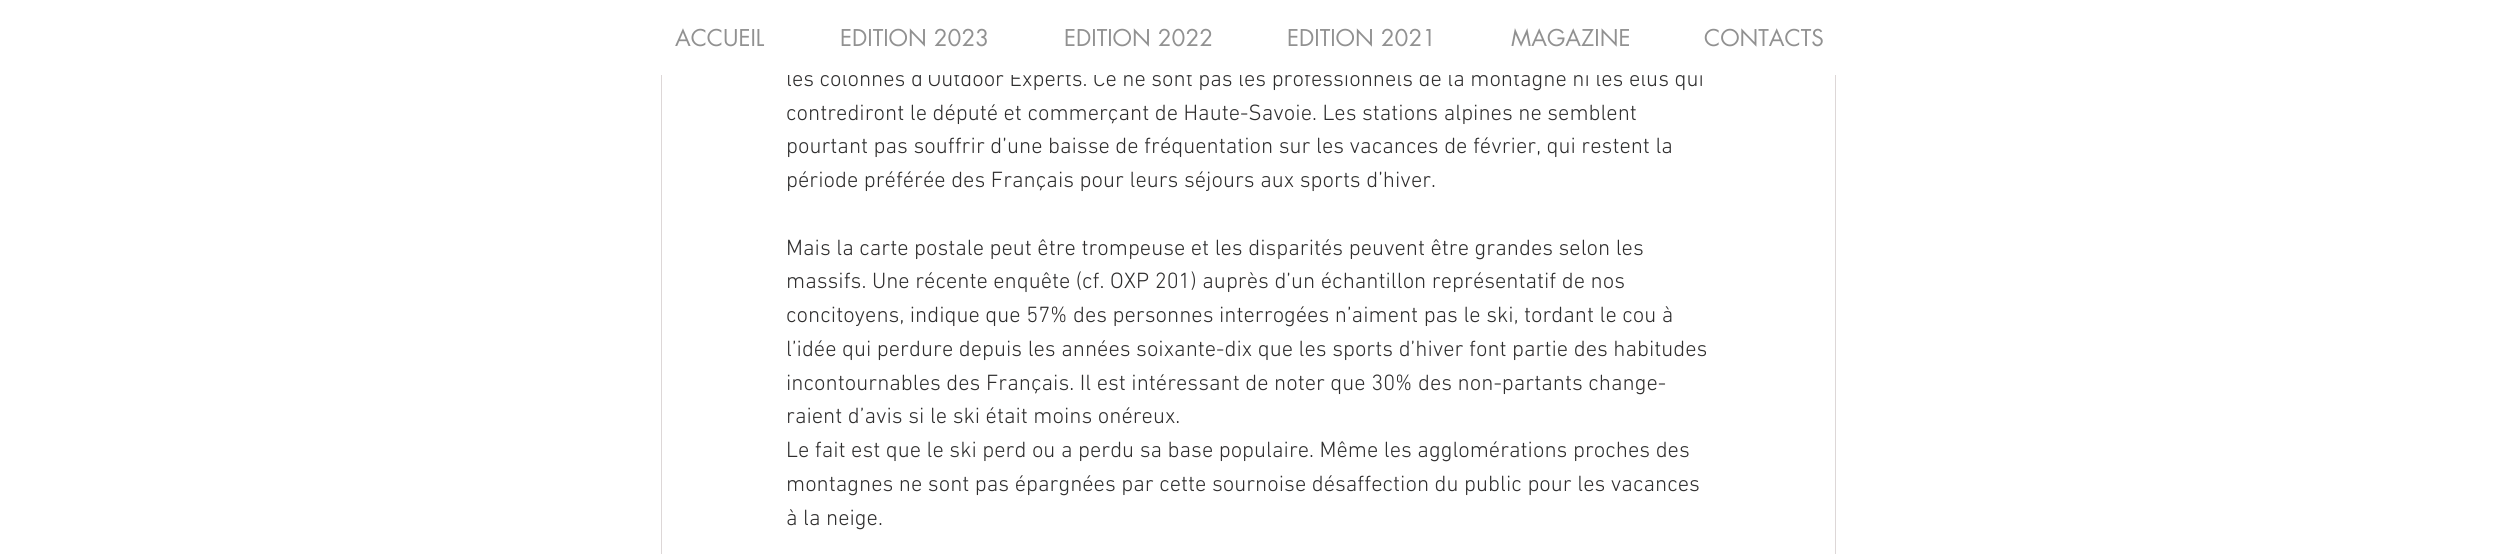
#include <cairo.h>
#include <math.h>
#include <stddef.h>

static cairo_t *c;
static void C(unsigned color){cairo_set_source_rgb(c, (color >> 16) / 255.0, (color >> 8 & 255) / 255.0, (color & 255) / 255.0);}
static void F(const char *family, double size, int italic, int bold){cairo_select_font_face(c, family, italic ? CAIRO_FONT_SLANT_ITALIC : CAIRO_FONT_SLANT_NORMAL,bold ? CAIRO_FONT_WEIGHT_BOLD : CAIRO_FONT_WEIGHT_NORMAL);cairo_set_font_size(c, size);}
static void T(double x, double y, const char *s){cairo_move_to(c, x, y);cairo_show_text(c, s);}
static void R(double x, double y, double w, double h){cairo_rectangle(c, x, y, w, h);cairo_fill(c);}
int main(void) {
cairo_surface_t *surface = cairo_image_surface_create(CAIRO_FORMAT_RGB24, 2497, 554);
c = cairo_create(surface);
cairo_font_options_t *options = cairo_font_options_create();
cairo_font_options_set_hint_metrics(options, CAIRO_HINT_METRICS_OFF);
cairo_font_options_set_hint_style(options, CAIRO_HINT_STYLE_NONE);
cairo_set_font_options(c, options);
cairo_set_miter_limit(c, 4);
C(0xffffff);
cairo_paint(c);
cairo_rectangle(c,661.5,-.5,1174,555);
C(0xddd7d7);
cairo_set_line_width(c,1);
cairo_stroke(c);
F("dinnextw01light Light",22.5,0,0);
C(0x2f2e2e);
T(786,86,"les colonnes d’Outdoor Experts. Ce ne sont pas les professionnels de la montagne ni les élus qui");
C(0xffffff);
R(661,0,1175,75);
F("futura",22.5,0,0);
C(0x919191);
T(675,46,"ACCUEIL");
T(840,46,"EDITION 2023");
T(1064,46,"EDITION 2022");
T(1287,46,"EDITION 2021");
T(1511,46,"MAGAZINE");
T(1704,46,"CONTACTS");
F("dinnextw01light Light",22.5,0,0);
C(0x2f2e2e);
T(786,120,"contrediront le député et commerçant de Haute-Savoie. Les stations alpines ne semblent");
T(786,153,"pourtant pas souffrir d’une baisse de fréquentation sur les vacances de février, qui restent la");
T(786,187,"période préférée des Français pour leurs séjours aux sports d’hiver.");
T(786,255,"Mais la carte postale peut être trompeuse et les disparités peuvent être grandes selon les");
T(786,288,"massifs. Une récente enquête (cf. OXP 201) auprès d’un échantillon représentatif de nos");
T(786,322,"concitoyens, indique que 57% des personnes interrogées n’aiment pas le ski, tordant le cou à");
T(786,356,"l’idée qui perdure depuis les années soixante-dix que les sports d’hiver font partie des habitudes");
T(786,390,"incontournables des Français. Il est intéressant de noter que 30% des non-partants change-");
T(786,423,"raient d’avis si le ski était moins onéreux.");
T(786,457,"Le fait est que le ski perd ou a perdu sa base populaire. Même les agglomérations proches des");
T(786,491,"montagnes ne sont pas épargnées par cette sournoise désaffection du public pour les vacances");
T(786,525,"à la neige.");
cairo_surface_write_to_png(surface, "o.png");
cairo_font_options_destroy(options);
cairo_destroy(c);
cairo_surface_destroy(surface);
return 0;
}
